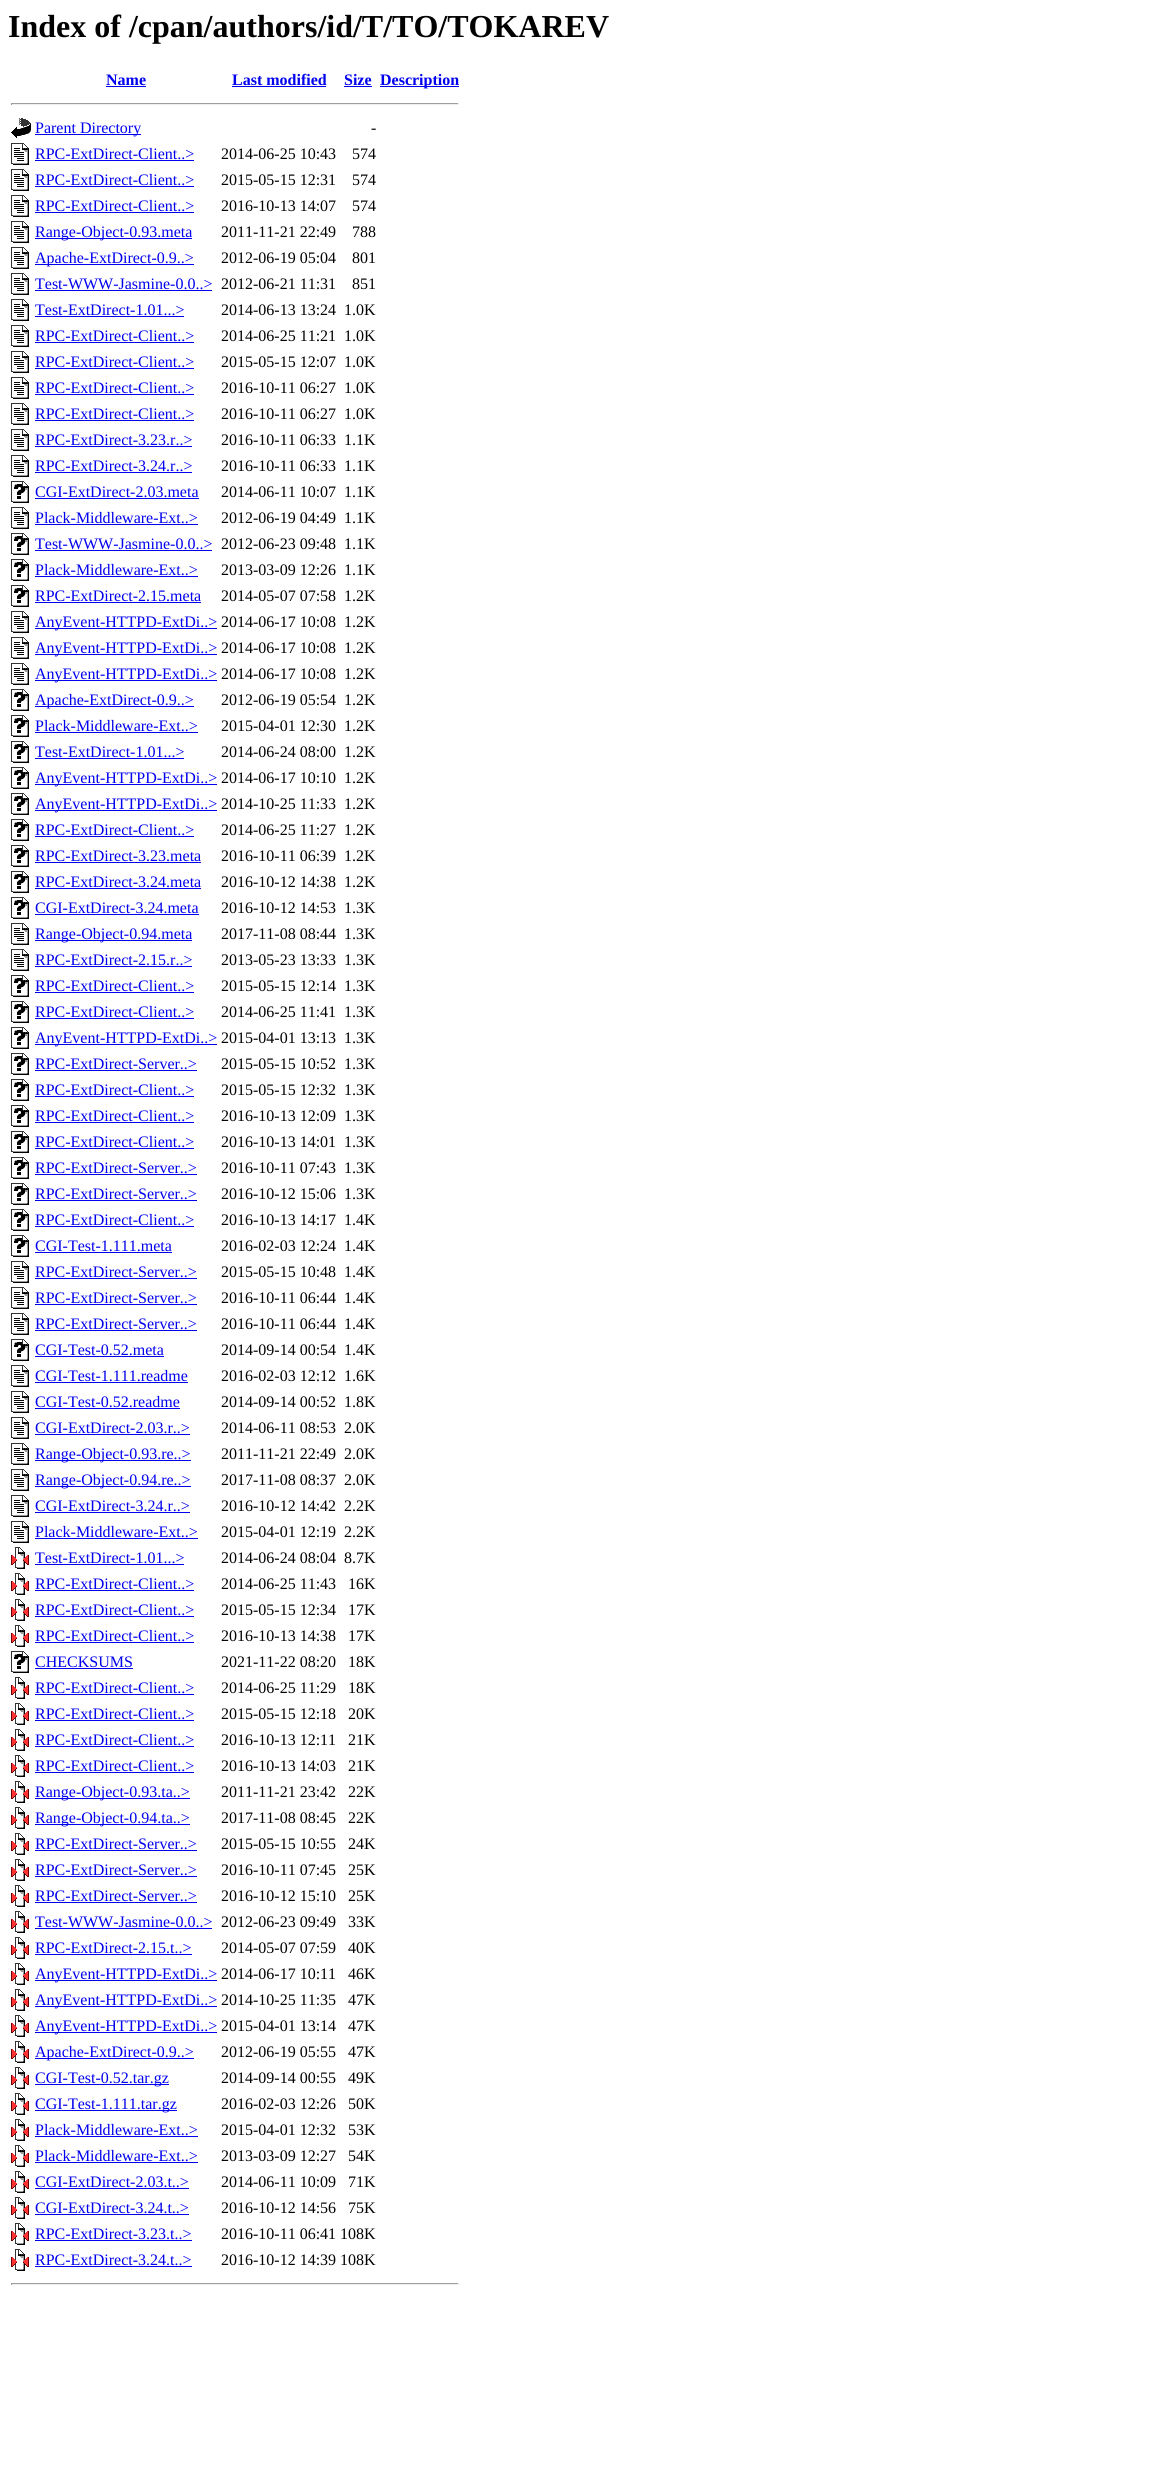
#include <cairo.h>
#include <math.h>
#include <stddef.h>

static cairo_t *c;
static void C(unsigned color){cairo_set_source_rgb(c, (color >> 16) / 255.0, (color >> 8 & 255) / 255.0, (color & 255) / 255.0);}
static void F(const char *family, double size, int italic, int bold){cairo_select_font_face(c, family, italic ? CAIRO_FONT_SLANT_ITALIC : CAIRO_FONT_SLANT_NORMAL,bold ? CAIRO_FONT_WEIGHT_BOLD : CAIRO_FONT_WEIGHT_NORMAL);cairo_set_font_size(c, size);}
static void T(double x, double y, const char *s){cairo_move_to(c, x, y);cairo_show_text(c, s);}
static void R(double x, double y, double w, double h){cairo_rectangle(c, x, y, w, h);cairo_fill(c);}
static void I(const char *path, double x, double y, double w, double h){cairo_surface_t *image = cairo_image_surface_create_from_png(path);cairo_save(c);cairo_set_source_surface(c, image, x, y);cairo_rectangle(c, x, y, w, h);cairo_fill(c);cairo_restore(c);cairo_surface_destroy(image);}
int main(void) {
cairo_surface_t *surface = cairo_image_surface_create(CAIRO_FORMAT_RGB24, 1168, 2486);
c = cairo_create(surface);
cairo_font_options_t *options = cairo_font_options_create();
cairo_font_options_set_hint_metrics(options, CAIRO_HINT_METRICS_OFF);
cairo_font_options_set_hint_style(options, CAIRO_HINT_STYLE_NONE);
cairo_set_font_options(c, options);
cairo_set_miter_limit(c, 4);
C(0xffffff);
cairo_paint(c);
F("Liberation Serif",32,0,1);
C(0x000000);
T(8,37,"Index of /cpan/authors/id/T/TO/TOKAREV");
F("Liberation Serif",16,0,1);
C(0x0000ee);
T(106,85,"Name");
R(106,86,40,1);
T(232,85,"Last modified");
R(232,86,94,1);
T(344,85,"Size");
R(344,86,28,1);
R(380,86,79,1);
T(380,85,"Description");
C(0x9f9f9f);
R(11,103,448,1);
C(0xeeeeee);
R(458,103,1,2);
R(11,104,448,1);
C(0x9f9f9f);
R(11,103,1,2);
I("1.png",11,118,20,20);
C(0x0000ee);
R(35,134,106,1);
F("Liberation Serif",16,0,0);
T(35,133,"Parent Directory");
C(0x000000);
T(371,133,"-");
I("2.png",11,143,18,22);
C(0x0000ee);
T(35,159,"RPC-ExtDirect-Client..>");
R(35,160,159,1);
C(0x000000);
T(221,159,"2014-06-25 10:43");
T(352,159,"574");
I("2.png",11,169,18,22);
C(0x0000ee);
T(35,185,"RPC-ExtDirect-Client..>");
R(35,186,159,1);
C(0x000000);
T(221,185,"2015-05-15 12:31");
T(352,185,"574");
I("2.png",11,195,18,22);
C(0x0000ee);
T(35,211,"RPC-ExtDirect-Client..>");
R(35,212,159,1);
C(0x000000);
T(221,211,"2016-10-13 14:07");
T(352,211,"574");
I("2.png",11,221,18,22);
C(0x0000ee);
R(35,238,157,1);
T(35,237,"Range-Object-0.93.meta");
C(0x000000);
T(221,237,"2011-11-21 22:49");
T(352,237,"788");
I("2.png",11,247,18,22);
C(0x0000ee);
R(35,264,159,1);
T(35,263,"Apache-ExtDirect-0.9..>");
C(0x000000);
T(221,263,"2012-06-19 05:04");
T(352,263,"801");
I("2.png",11,273,18,22);
C(0x0000ee);
T(35,289,"Test-WWW-Jasmine-0.0..>");
R(35,290,177,1);
C(0x000000);
T(221,289,"2012-06-21 11:31");
T(352,289,"851");
I("2.png",11,299,18,22);
C(0x0000ee);
T(35,315,"Test-ExtDirect-1.01...>");
R(35,316,149,1);
C(0x000000);
T(221,315,"2014-06-13 13:24");
T(344,315,"1.0K");
I("2.png",11,325,18,22);
C(0x0000ee);
T(35,341,"RPC-ExtDirect-Client..>");
R(35,342,159,1);
C(0x000000);
T(221,341,"2014-06-25 11:21");
T(344,341,"1.0K");
I("2.png",11,351,18,22);
C(0x0000ee);
T(35,367,"RPC-ExtDirect-Client..>");
R(35,368,159,1);
C(0x000000);
T(221,367,"2015-05-15 12:07");
T(344,367,"1.0K");
I("2.png",11,377,18,22);
C(0x0000ee);
T(35,393,"RPC-ExtDirect-Client..>");
R(35,394,159,1);
C(0x000000);
T(221,393,"2016-10-11 06:27");
T(344,393,"1.0K");
I("2.png",11,403,18,22);
C(0x0000ee);
T(35,419,"RPC-ExtDirect-Client..>");
R(35,420,159,1);
C(0x000000);
T(221,419,"2016-10-11 06:27");
T(344,419,"1.0K");
I("2.png",11,429,18,22);
C(0x0000ee);
T(35,445,"RPC-ExtDirect-3.23.r..>");
R(35,446,157,1);
C(0x000000);
T(221,445,"2016-10-11 06:33");
T(344,445,"1.1K");
I("2.png",11,455,18,22);
C(0x0000ee);
T(35,471,"RPC-ExtDirect-3.24.r..>");
R(35,472,157,1);
C(0x000000);
T(221,471,"2016-10-11 06:33");
T(344,471,"1.1K");
I("3.png",11,481,18,22);
C(0x0000ee);
T(35,497,"CGI-ExtDirect-2.03.meta");
R(35,498,164,1);
C(0x000000);
T(221,497,"2014-06-11 10:07");
T(344,497,"1.1K");
I("2.png",11,507,18,22);
C(0x0000ee);
T(35,523,"Plack-Middleware-Ext..>");
R(35,524,163,1);
C(0x000000);
T(221,523,"2012-06-19 04:49");
T(344,523,"1.1K");
I("3.png",11,533,18,22);
C(0x0000ee);
T(35,549,"Test-WWW-Jasmine-0.0..>");
R(35,550,177,1);
C(0x000000);
T(221,549,"2012-06-23 09:48");
T(344,549,"1.1K");
I("3.png",11,559,18,22);
C(0x0000ee);
T(35,575,"Plack-Middleware-Ext..>");
R(35,576,163,1);
C(0x000000);
T(221,575,"2013-03-09 12:26");
T(344,575,"1.1K");
I("3.png",11,585,18,22);
C(0x0000ee);
T(35,601,"RPC-ExtDirect-2.15.meta");
R(35,602,166,1);
C(0x000000);
T(221,601,"2014-05-07 07:58");
T(344,601,"1.2K");
I("2.png",11,611,18,22);
C(0x0000ee);
R(35,628,182,1);
T(35,627,"AnyEvent-HTTPD-ExtDi..>");
C(0x000000);
T(221,627,"2014-06-17 10:08");
T(344,627,"1.2K");
I("2.png",11,637,18,22);
C(0x0000ee);
R(35,654,182,1);
T(35,653,"AnyEvent-HTTPD-ExtDi..>");
C(0x000000);
T(221,653,"2014-06-17 10:08");
T(344,653,"1.2K");
I("2.png",11,663,18,22);
C(0x0000ee);
R(35,680,182,1);
T(35,679,"AnyEvent-HTTPD-ExtDi..>");
C(0x000000);
T(221,679,"2014-06-17 10:08");
T(344,679,"1.2K");
I("3.png",11,689,18,22);
C(0x0000ee);
R(35,706,159,1);
T(35,705,"Apache-ExtDirect-0.9..>");
C(0x000000);
T(221,705,"2012-06-19 05:54");
T(344,705,"1.2K");
I("3.png",11,715,18,22);
C(0x0000ee);
T(35,731,"Plack-Middleware-Ext..>");
R(35,732,163,1);
C(0x000000);
T(221,731,"2015-04-01 12:30");
T(344,731,"1.2K");
I("3.png",11,741,18,22);
C(0x0000ee);
T(35,757,"Test-ExtDirect-1.01...>");
R(35,758,149,1);
C(0x000000);
T(221,757,"2014-06-24 08:00");
T(344,757,"1.2K");
I("3.png",11,767,18,22);
C(0x0000ee);
R(35,784,182,1);
T(35,783,"AnyEvent-HTTPD-ExtDi..>");
C(0x000000);
T(221,783,"2014-06-17 10:10");
T(344,783,"1.2K");
I("3.png",11,793,18,22);
C(0x0000ee);
R(35,810,182,1);
T(35,809,"AnyEvent-HTTPD-ExtDi..>");
C(0x000000);
T(221,809,"2014-10-25 11:33");
T(344,809,"1.2K");
I("3.png",11,819,18,22);
C(0x0000ee);
T(35,835,"RPC-ExtDirect-Client..>");
R(35,836,159,1);
C(0x000000);
T(221,835,"2014-06-25 11:27");
T(344,835,"1.2K");
I("3.png",11,845,18,22);
C(0x0000ee);
T(35,861,"RPC-ExtDirect-3.23.meta");
R(35,862,166,1);
C(0x000000);
T(221,861,"2016-10-11 06:39");
T(344,861,"1.2K");
I("3.png",11,871,18,22);
C(0x0000ee);
T(35,887,"RPC-ExtDirect-3.24.meta");
R(35,888,166,1);
C(0x000000);
T(221,887,"2016-10-12 14:38");
T(344,887,"1.2K");
I("3.png",11,897,18,22);
C(0x0000ee);
T(35,913,"CGI-ExtDirect-3.24.meta");
R(35,914,164,1);
C(0x000000);
T(221,913,"2016-10-12 14:53");
T(344,913,"1.3K");
I("2.png",11,923,18,22);
C(0x0000ee);
R(35,940,157,1);
T(35,939,"Range-Object-0.94.meta");
C(0x000000);
T(221,939,"2017-11-08 08:44");
T(344,939,"1.3K");
I("2.png",11,949,18,22);
C(0x0000ee);
T(35,965,"RPC-ExtDirect-2.15.r..>");
R(35,966,157,1);
C(0x000000);
T(221,965,"2013-05-23 13:33");
T(344,965,"1.3K");
I("3.png",11,975,18,22);
C(0x0000ee);
T(35,991,"RPC-ExtDirect-Client..>");
R(35,992,159,1);
C(0x000000);
T(221,991,"2015-05-15 12:14");
T(344,991,"1.3K");
I("3.png",11,1001,18,22);
C(0x0000ee);
T(35,1017,"RPC-ExtDirect-Client..>");
R(35,1018,159,1);
C(0x000000);
T(221,1017,"2014-06-25 11:41");
T(344,1017,"1.3K");
I("3.png",11,1027,18,22);
C(0x0000ee);
R(35,1044,182,1);
T(35,1043,"AnyEvent-HTTPD-ExtDi..>");
C(0x000000);
T(221,1043,"2015-04-01 13:13");
T(344,1043,"1.3K");
I("3.png",11,1053,18,22);
C(0x0000ee);
T(35,1069,"RPC-ExtDirect-Server..>");
R(35,1070,162,1);
C(0x000000);
T(221,1069,"2015-05-15 10:52");
T(344,1069,"1.3K");
I("3.png",11,1079,18,22);
C(0x0000ee);
T(35,1095,"RPC-ExtDirect-Client..>");
R(35,1096,159,1);
C(0x000000);
T(221,1095,"2015-05-15 12:32");
T(344,1095,"1.3K");
I("3.png",11,1105,18,22);
C(0x0000ee);
T(35,1121,"RPC-ExtDirect-Client..>");
R(35,1122,159,1);
C(0x000000);
T(221,1121,"2016-10-13 12:09");
T(344,1121,"1.3K");
I("3.png",11,1131,18,22);
C(0x0000ee);
T(35,1147,"RPC-ExtDirect-Client..>");
R(35,1148,159,1);
C(0x000000);
T(221,1147,"2016-10-13 14:01");
T(344,1147,"1.3K");
I("3.png",11,1157,18,22);
C(0x0000ee);
T(35,1173,"RPC-ExtDirect-Server..>");
R(35,1174,162,1);
C(0x000000);
T(221,1173,"2016-10-11 07:43");
T(344,1173,"1.3K");
I("3.png",11,1183,18,22);
C(0x0000ee);
T(35,1199,"RPC-ExtDirect-Server..>");
R(35,1200,162,1);
C(0x000000);
T(221,1199,"2016-10-12 15:06");
T(344,1199,"1.3K");
I("3.png",11,1209,18,22);
C(0x0000ee);
T(35,1225,"RPC-ExtDirect-Client..>");
R(35,1226,159,1);
C(0x000000);
T(221,1225,"2016-10-13 14:17");
T(344,1225,"1.4K");
I("3.png",11,1235,18,22);
C(0x0000ee);
T(35,1251,"CGI-Test-1.111.meta");
R(35,1252,137,1);
C(0x000000);
T(221,1251,"2016-02-03 12:24");
T(344,1251,"1.4K");
I("2.png",11,1261,18,22);
C(0x0000ee);
T(35,1277,"RPC-ExtDirect-Server..>");
R(35,1278,162,1);
C(0x000000);
T(221,1277,"2015-05-15 10:48");
T(344,1277,"1.4K");
I("2.png",11,1287,18,22);
C(0x0000ee);
T(35,1303,"RPC-ExtDirect-Server..>");
R(35,1304,162,1);
C(0x000000);
T(221,1303,"2016-10-11 06:44");
T(344,1303,"1.4K");
I("2.png",11,1313,18,22);
C(0x0000ee);
T(35,1329,"RPC-ExtDirect-Server..>");
R(35,1330,162,1);
C(0x000000);
T(221,1329,"2016-10-11 06:44");
T(344,1329,"1.4K");
I("3.png",11,1339,18,22);
C(0x0000ee);
T(35,1355,"CGI-Test-0.52.meta");
R(35,1356,129,1);
C(0x000000);
T(221,1355,"2014-09-14 00:54");
T(344,1355,"1.4K");
I("2.png",11,1365,18,22);
C(0x0000ee);
T(35,1381,"CGI-Test-1.111.readme");
R(35,1382,153,1);
C(0x000000);
T(221,1381,"2016-02-03 12:12");
T(344,1381,"1.6K");
I("2.png",11,1391,18,22);
C(0x0000ee);
T(35,1407,"CGI-Test-0.52.readme");
R(35,1408,145,1);
C(0x000000);
T(221,1407,"2014-09-14 00:52");
T(344,1407,"1.8K");
I("2.png",11,1417,18,22);
C(0x0000ee);
T(35,1433,"CGI-ExtDirect-2.03.r..>");
R(35,1434,155,1);
C(0x000000);
T(221,1433,"2014-06-11 08:53");
T(344,1433,"2.0K");
I("2.png",11,1443,18,22);
C(0x0000ee);
R(35,1460,156,1);
T(35,1459,"Range-Object-0.93.re..>");
C(0x000000);
T(221,1459,"2011-11-21 22:49");
T(344,1459,"2.0K");
I("2.png",11,1469,18,22);
C(0x0000ee);
R(35,1486,156,1);
T(35,1485,"Range-Object-0.94.re..>");
C(0x000000);
T(221,1485,"2017-11-08 08:37");
T(344,1485,"2.0K");
I("2.png",11,1495,18,22);
C(0x0000ee);
T(35,1511,"CGI-ExtDirect-3.24.r..>");
R(35,1512,155,1);
C(0x000000);
T(221,1511,"2016-10-12 14:42");
T(344,1511,"2.2K");
I("2.png",11,1521,18,22);
C(0x0000ee);
T(35,1537,"Plack-Middleware-Ext..>");
R(35,1538,163,1);
C(0x000000);
T(221,1537,"2015-04-01 12:19");
T(344,1537,"2.2K");
I("4.png",11,1547,18,22);
C(0x0000ee);
T(35,1563,"Test-ExtDirect-1.01...>");
R(35,1564,149,1);
C(0x000000);
T(221,1563,"2014-06-24 08:04");
T(344,1563,"8.7K");
I("4.png",11,1573,18,22);
C(0x0000ee);
T(35,1589,"RPC-ExtDirect-Client..>");
R(35,1590,159,1);
C(0x000000);
T(221,1589,"2014-06-25 11:43");
T(348,1589,"16K");
I("4.png",11,1599,18,22);
C(0x0000ee);
T(35,1615,"RPC-ExtDirect-Client..>");
R(35,1616,159,1);
C(0x000000);
T(221,1615,"2015-05-15 12:34");
T(348,1615,"17K");
I("4.png",11,1625,18,22);
C(0x0000ee);
T(35,1641,"RPC-ExtDirect-Client..>");
R(35,1642,159,1);
C(0x000000);
T(221,1641,"2016-10-13 14:38");
T(348,1641,"17K");
I("3.png",11,1651,18,22);
C(0x0000ee);
T(35,1667,"CHECKSUMS");
R(35,1668,98,1);
C(0x000000);
T(221,1667,"2021-11-22 08:20");
T(348,1667,"18K");
I("4.png",11,1677,18,22);
C(0x0000ee);
T(35,1693,"RPC-ExtDirect-Client..>");
R(35,1694,159,1);
C(0x000000);
T(221,1693,"2014-06-25 11:29");
T(348,1693,"18K");
I("4.png",11,1703,18,22);
C(0x0000ee);
T(35,1719,"RPC-ExtDirect-Client..>");
R(35,1720,159,1);
C(0x000000);
T(221,1719,"2015-05-15 12:18");
T(348,1719,"20K");
I("4.png",11,1729,18,22);
C(0x0000ee);
T(35,1745,"RPC-ExtDirect-Client..>");
R(35,1746,159,1);
C(0x000000);
T(221,1745,"2016-10-13 12:11");
T(348,1745,"21K");
I("4.png",11,1755,18,22);
C(0x0000ee);
T(35,1771,"RPC-ExtDirect-Client..>");
R(35,1772,159,1);
C(0x000000);
T(221,1771,"2016-10-13 14:03");
T(348,1771,"21K");
I("4.png",11,1781,18,22);
C(0x0000ee);
R(35,1798,155,1);
T(35,1797,"Range-Object-0.93.ta..>");
C(0x000000);
T(221,1797,"2011-11-21 23:42");
T(348,1797,"22K");
I("4.png",11,1807,18,22);
C(0x0000ee);
R(35,1824,155,1);
T(35,1823,"Range-Object-0.94.ta..>");
C(0x000000);
T(221,1823,"2017-11-08 08:45");
T(348,1823,"22K");
I("4.png",11,1833,18,22);
C(0x0000ee);
T(35,1849,"RPC-ExtDirect-Server..>");
R(35,1850,162,1);
C(0x000000);
T(221,1849,"2015-05-15 10:55");
T(348,1849,"24K");
I("4.png",11,1859,18,22);
C(0x0000ee);
T(35,1875,"RPC-ExtDirect-Server..>");
R(35,1876,162,1);
C(0x000000);
T(221,1875,"2016-10-11 07:45");
T(348,1875,"25K");
I("4.png",11,1885,18,22);
C(0x0000ee);
T(35,1901,"RPC-ExtDirect-Server..>");
R(35,1902,162,1);
C(0x000000);
T(221,1901,"2016-10-12 15:10");
T(348,1901,"25K");
I("4.png",11,1911,18,22);
C(0x0000ee);
T(35,1927,"Test-WWW-Jasmine-0.0..>");
R(35,1928,177,1);
C(0x000000);
T(221,1927,"2012-06-23 09:49");
T(348,1927,"33K");
I("4.png",11,1937,18,22);
C(0x0000ee);
T(35,1953,"RPC-ExtDirect-2.15.t..>");
R(35,1954,157,1);
C(0x000000);
T(221,1953,"2014-05-07 07:59");
T(348,1953,"40K");
I("4.png",11,1963,18,22);
C(0x0000ee);
R(35,1980,182,1);
T(35,1979,"AnyEvent-HTTPD-ExtDi..>");
C(0x000000);
T(221,1979,"2014-06-17 10:11");
T(348,1979,"46K");
I("4.png",11,1989,18,22);
C(0x0000ee);
R(35,2006,182,1);
T(35,2005,"AnyEvent-HTTPD-ExtDi..>");
C(0x000000);
T(221,2005,"2014-10-25 11:35");
T(348,2005,"47K");
I("4.png",11,2015,18,22);
C(0x0000ee);
R(35,2032,182,1);
T(35,2031,"AnyEvent-HTTPD-ExtDi..>");
C(0x000000);
T(221,2031,"2015-04-01 13:14");
T(348,2031,"47K");
I("4.png",11,2041,18,22);
C(0x0000ee);
R(35,2058,159,1);
T(35,2057,"Apache-ExtDirect-0.9..>");
C(0x000000);
T(221,2057,"2012-06-19 05:55");
T(348,2057,"47K");
I("4.png",11,2067,18,22);
C(0x0000ee);
R(35,2084,134,1);
T(35,2083,"CGI-Test-0.52.tar.gz");
C(0x000000);
T(221,2083,"2014-09-14 00:55");
T(348,2083,"49K");
I("4.png",11,2093,18,22);
C(0x0000ee);
R(35,2110,142,1);
T(35,2109,"CGI-Test-1.111.tar.gz");
C(0x000000);
T(221,2109,"2016-02-03 12:26");
T(348,2109,"50K");
I("4.png",11,2119,18,22);
C(0x0000ee);
T(35,2135,"Plack-Middleware-Ext..>");
R(35,2136,163,1);
C(0x000000);
T(221,2135,"2015-04-01 12:32");
T(348,2135,"53K");
I("4.png",11,2145,18,22);
C(0x0000ee);
T(35,2161,"Plack-Middleware-Ext..>");
R(35,2162,163,1);
C(0x000000);
T(221,2161,"2013-03-09 12:27");
T(348,2161,"54K");
I("4.png",11,2171,18,22);
C(0x0000ee);
T(35,2187,"CGI-ExtDirect-2.03.t..>");
R(35,2188,154,1);
C(0x000000);
T(221,2187,"2014-06-11 10:09");
T(348,2187,"71K");
I("4.png",11,2197,18,22);
C(0x0000ee);
T(35,2213,"CGI-ExtDirect-3.24.t..>");
R(35,2214,154,1);
C(0x000000);
T(221,2213,"2016-10-12 14:56");
T(348,2213,"75K");
I("4.png",11,2223,18,22);
C(0x0000ee);
T(35,2239,"RPC-ExtDirect-3.23.t..>");
R(35,2240,157,1);
C(0x000000);
T(221,2239,"2016-10-11 06:41 108K");
I("4.png",11,2249,18,22);
C(0x0000ee);
T(35,2265,"RPC-ExtDirect-3.24.t..>");
R(35,2266,157,1);
C(0x000000);
T(221,2265,"2016-10-12 14:39 108K");
C(0x9f9f9f);
R(11,2283,448,1);
C(0xeeeeee);
R(458,2283,1,2);
R(11,2284,448,1);
C(0x9f9f9f);
R(11,2283,1,2);
cairo_surface_write_to_png(surface, "o.png");
cairo_font_options_destroy(options);
cairo_destroy(c);
cairo_surface_destroy(surface);
return 0;
}
